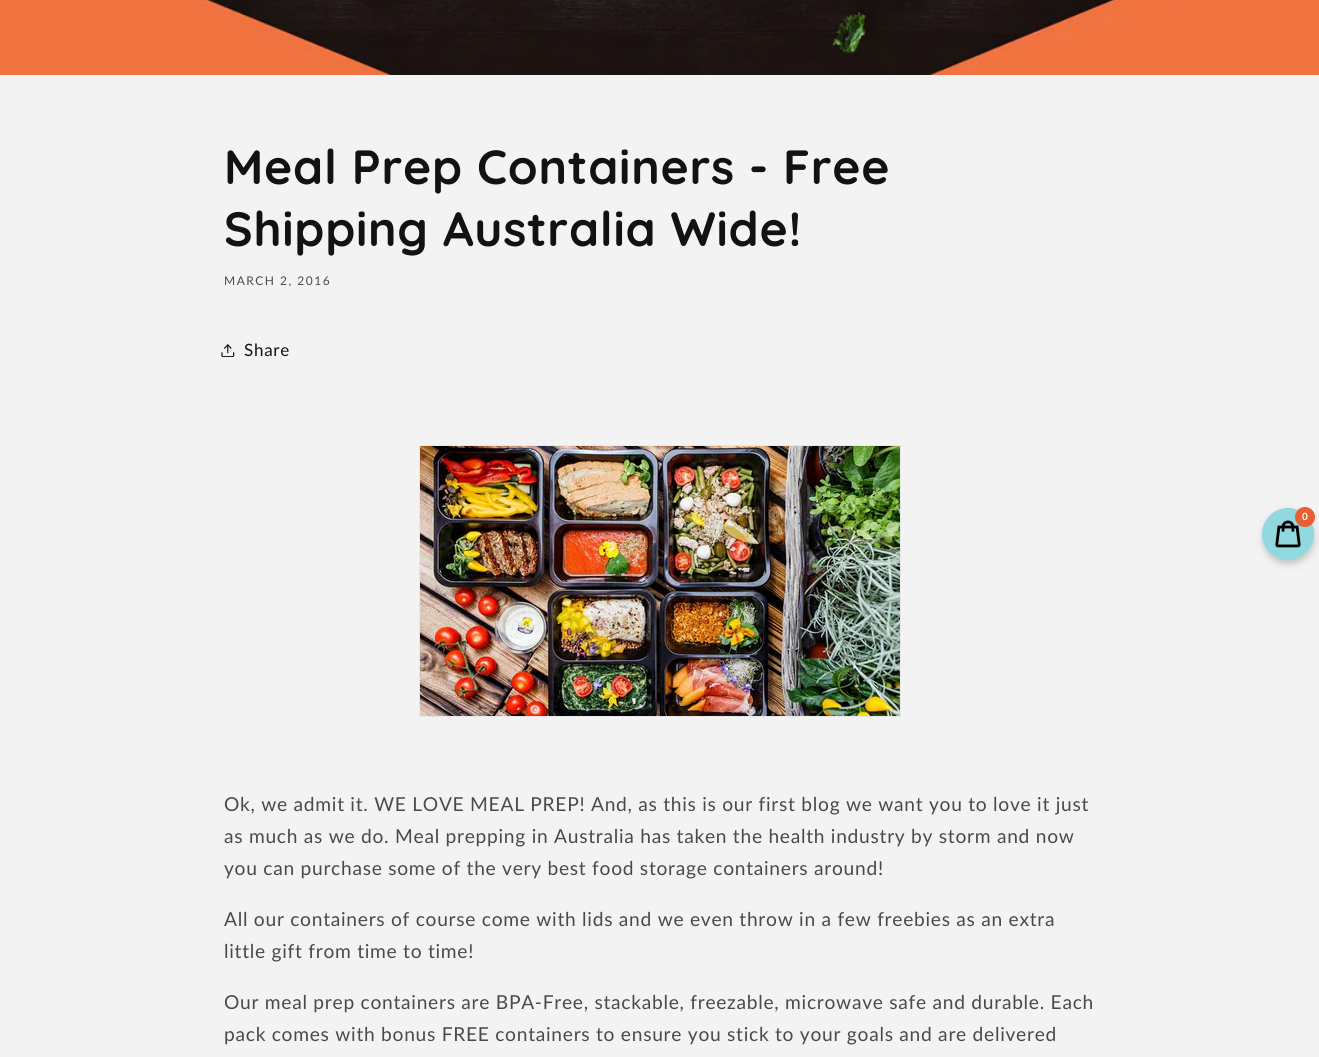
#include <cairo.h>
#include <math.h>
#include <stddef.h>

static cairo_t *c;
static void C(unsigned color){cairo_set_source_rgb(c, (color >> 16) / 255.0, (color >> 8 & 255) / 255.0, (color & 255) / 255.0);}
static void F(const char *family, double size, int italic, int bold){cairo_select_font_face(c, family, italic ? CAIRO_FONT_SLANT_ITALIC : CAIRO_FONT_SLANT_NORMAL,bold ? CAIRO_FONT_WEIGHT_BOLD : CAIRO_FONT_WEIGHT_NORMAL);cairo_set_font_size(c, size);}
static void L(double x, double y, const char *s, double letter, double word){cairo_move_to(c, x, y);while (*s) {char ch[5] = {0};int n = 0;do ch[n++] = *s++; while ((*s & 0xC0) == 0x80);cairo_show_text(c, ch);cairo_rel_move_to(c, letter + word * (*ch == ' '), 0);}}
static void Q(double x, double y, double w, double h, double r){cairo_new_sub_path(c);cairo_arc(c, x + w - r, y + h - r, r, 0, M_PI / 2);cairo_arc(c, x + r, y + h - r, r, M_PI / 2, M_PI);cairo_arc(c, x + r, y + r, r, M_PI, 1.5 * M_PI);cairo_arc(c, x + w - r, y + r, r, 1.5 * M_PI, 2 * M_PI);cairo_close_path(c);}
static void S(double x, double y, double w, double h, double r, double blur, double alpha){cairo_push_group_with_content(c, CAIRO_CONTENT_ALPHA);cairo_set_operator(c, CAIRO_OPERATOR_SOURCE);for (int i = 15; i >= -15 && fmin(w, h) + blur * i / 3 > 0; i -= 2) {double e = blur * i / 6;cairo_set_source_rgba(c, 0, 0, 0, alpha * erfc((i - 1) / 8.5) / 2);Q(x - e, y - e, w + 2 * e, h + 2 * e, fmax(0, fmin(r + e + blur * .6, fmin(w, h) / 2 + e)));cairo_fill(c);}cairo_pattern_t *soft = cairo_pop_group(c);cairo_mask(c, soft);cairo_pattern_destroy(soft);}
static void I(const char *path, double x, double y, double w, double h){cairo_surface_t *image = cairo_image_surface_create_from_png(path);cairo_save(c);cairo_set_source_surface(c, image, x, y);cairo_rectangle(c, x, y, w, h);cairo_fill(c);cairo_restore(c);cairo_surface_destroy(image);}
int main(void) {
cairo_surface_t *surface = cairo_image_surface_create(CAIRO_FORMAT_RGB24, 1319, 1057);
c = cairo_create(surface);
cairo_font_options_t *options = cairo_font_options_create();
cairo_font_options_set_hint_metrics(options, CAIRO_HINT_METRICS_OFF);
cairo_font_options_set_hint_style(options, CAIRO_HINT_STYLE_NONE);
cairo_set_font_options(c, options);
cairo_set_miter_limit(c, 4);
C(0xf3f3f3);
cairo_paint(c);
I("1.png",0,0,1319,75);
F("Quicksand",48,0,1);
C(0x121212);
L(224,184,"Meal Prep Containers - Free",.72,0);
L(224,246,"Shipping Australia Wide!",.72,0);
F("Lato",12,0,0);
C(0x4a4a4a);
L(224,285,"MARCH 2, 2016",1.5,0);
I("2.png",221,344,14,13);
F("Lato",17,0,0);
C(0x121212);
L(244,356,"Share",.72,0);
cairo_rectangle(c,419.5,445.5,481,271);
C(0xe8e8e8);
cairo_set_line_width(c,1);
cairo_stroke(c);
I("3.png",420,446,480,270);
F("Lato",19.2,0,0);
C(0x4a4a4a);
L(224,811,"Ok, we admit it. WE LOVE MEAL PREP! And, as this is our first blog we want you to love it just",.72,0);
L(224,843,"as much as we do. Meal prepping in Australia has taken the health industry by storm and now",.72,0);
L(224,875,"you can purchase some of the very best food storage containers around!",.72,0);
L(224,926,"All our containers of course come with lids and we even throw in a few freebies as an extra",.72,0);
L(224,958,"little gift from time to time!",.72,0);
L(224,1009,"Our meal prep containers are BPA-Free, stackable, freezable, microwave safe and durable. Each",.72,0);
L(224,1041,"pack comes with bonus FREE containers to ensure you stick to your goals and are delivered",.72,0);
C(0x000000);
S(1262,512,52,52,26,2,.08);
S(1263,512,52,52,26,5,.12);
C(0x92d8df);
cairo_arc(c,1288,534,26,0,2 * M_PI);
cairo_fill(c);
I("4.png",1275,520,26,28);
C(0xe75f33);
cairo_arc(c,1305,517,10,0,2 * M_PI);
cairo_fill(c);
F("Lato",10,0,1);
C(0xffffff);
L(1302,520,"0",.72,0);
cairo_surface_write_to_png(surface, "o.png");
cairo_font_options_destroy(options);
cairo_destroy(c);
cairo_surface_destroy(surface);
return 0;
}
